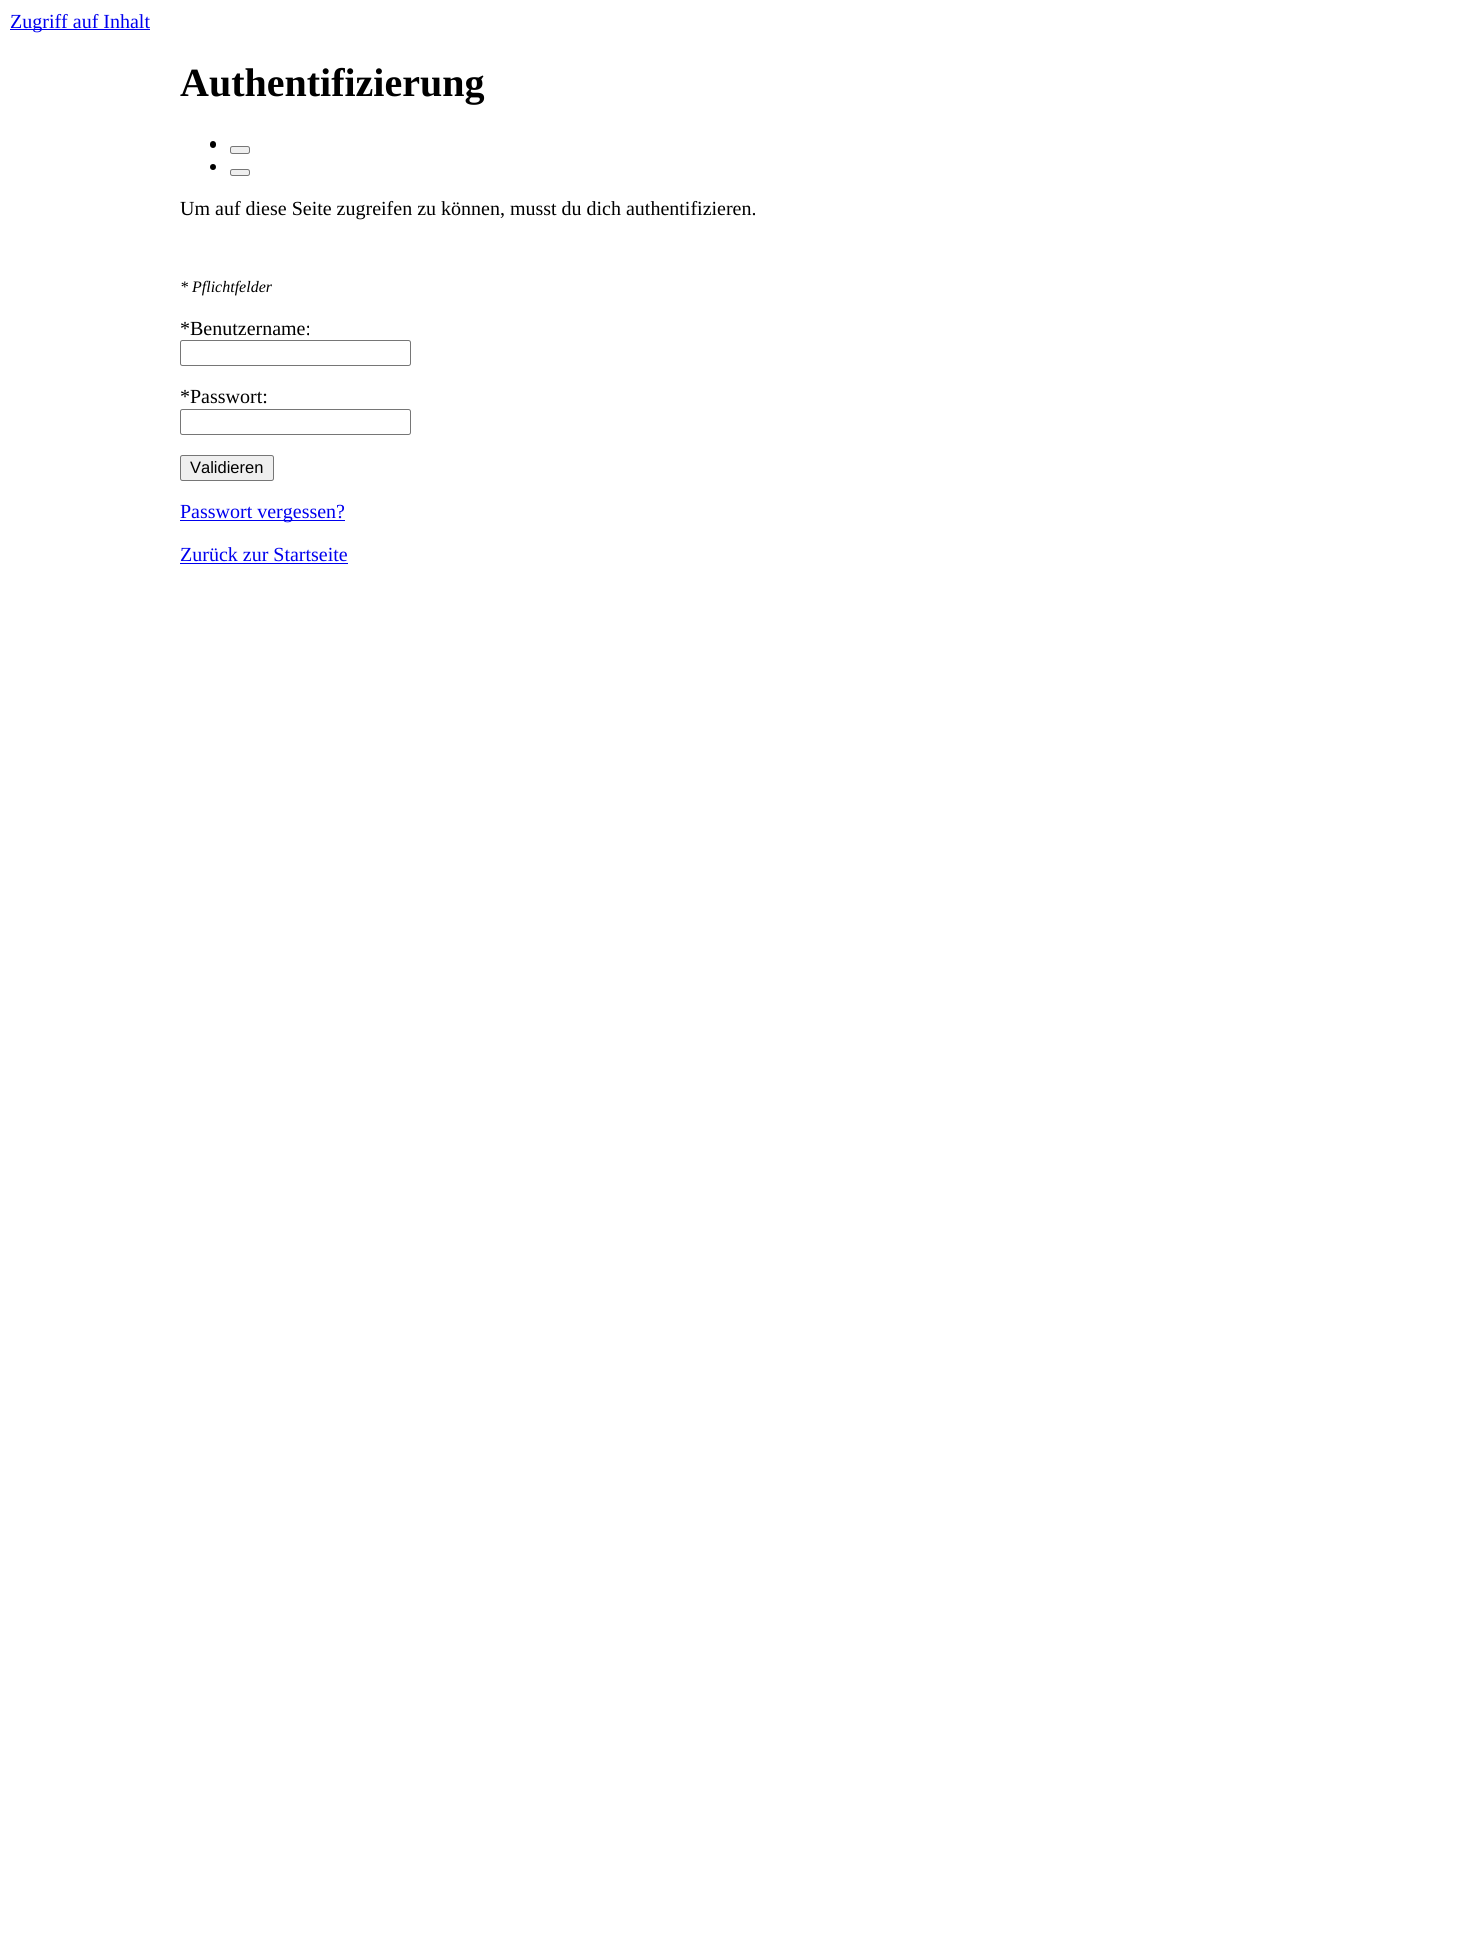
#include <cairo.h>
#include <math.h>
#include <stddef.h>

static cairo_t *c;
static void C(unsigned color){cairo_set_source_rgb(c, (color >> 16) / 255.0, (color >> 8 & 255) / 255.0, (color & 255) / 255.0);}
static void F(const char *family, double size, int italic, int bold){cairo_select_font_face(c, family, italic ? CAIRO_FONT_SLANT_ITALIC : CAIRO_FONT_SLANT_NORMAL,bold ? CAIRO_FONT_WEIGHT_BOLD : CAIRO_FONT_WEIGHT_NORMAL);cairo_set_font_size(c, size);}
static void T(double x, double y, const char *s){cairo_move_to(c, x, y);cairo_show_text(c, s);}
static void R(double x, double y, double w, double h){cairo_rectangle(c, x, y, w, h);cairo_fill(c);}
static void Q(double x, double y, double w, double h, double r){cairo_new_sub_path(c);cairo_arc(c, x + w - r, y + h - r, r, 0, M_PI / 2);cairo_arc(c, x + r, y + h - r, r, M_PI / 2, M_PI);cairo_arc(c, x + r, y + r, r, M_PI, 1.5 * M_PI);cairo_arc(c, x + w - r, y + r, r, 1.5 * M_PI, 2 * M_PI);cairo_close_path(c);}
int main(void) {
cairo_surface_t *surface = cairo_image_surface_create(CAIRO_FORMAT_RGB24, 1473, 1949);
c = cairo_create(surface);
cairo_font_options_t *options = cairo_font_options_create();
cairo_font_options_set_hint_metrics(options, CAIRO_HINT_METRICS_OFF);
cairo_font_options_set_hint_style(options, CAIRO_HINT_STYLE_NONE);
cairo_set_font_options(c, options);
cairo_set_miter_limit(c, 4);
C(0xffffff);
cairo_paint(c);
C(0x0000ee);
R(10,29,140,1);
F("Liberation Serif",20,0,0);
T(10,28,"Zugriff auf Inhalt");
F("Liberation Serif",40,0,1);
C(0x000000);
T(180,96,"Authentifizierung");
Q(210,141,6,7,3);
cairo_fill(c);
C(0xefefef);
Q(230.5,146.5,19,7,2);
cairo_fill_preserve(c);
C(0x767676);
cairo_set_line_width(c,1);
cairo_stroke(c);
C(0x000000);
cairo_arc(c,213,167,3,0,2 * M_PI);
cairo_fill(c);
C(0xefefef);
Q(230.5,169.5,19,6,2);
cairo_fill_preserve(c);
C(0x767676);
cairo_stroke(c);
F("Liberation Serif",20,0,0);
C(0x000000);
T(180,215,"Um auf diese Seite zugreifen zu können, musst du dich authentifizieren.");
F("Liberation Serif",16,1,0);
T(180,292,"* Pflichtfelder");
F("Liberation Serif",20,0,0);
T(180,335,"*Benutzername:");
Q(180.5,340.5,230,25,2);
C(0x767676);
cairo_stroke(c);
C(0x000000);
T(180,403,"*Passwort:");
Q(180.5,409.5,230,25,2);
C(0x767676);
cairo_stroke(c);
C(0xefefef);
Q(180.5,455.5,93,25,2);
cairo_fill_preserve(c);
C(0x767676);
cairo_stroke(c);
F("Liberation Sans",16.5,0,0);
C(0x000000);
T(190,473,"Validieren");
C(0x0000ee);
R(180,520,165,1);
F("Liberation Serif",20,0,0);
T(180,518,"Passwort vergessen?");
T(180,561,"Zurück zur Startseite");
R(180,563,168,1);
cairo_surface_write_to_png(surface, "o.png");
cairo_font_options_destroy(options);
cairo_destroy(c);
cairo_surface_destroy(surface);
return 0;
}
